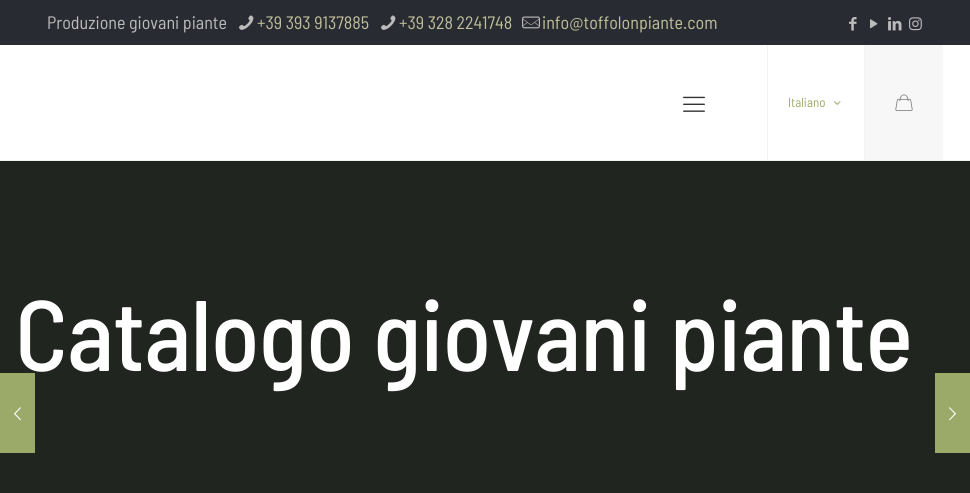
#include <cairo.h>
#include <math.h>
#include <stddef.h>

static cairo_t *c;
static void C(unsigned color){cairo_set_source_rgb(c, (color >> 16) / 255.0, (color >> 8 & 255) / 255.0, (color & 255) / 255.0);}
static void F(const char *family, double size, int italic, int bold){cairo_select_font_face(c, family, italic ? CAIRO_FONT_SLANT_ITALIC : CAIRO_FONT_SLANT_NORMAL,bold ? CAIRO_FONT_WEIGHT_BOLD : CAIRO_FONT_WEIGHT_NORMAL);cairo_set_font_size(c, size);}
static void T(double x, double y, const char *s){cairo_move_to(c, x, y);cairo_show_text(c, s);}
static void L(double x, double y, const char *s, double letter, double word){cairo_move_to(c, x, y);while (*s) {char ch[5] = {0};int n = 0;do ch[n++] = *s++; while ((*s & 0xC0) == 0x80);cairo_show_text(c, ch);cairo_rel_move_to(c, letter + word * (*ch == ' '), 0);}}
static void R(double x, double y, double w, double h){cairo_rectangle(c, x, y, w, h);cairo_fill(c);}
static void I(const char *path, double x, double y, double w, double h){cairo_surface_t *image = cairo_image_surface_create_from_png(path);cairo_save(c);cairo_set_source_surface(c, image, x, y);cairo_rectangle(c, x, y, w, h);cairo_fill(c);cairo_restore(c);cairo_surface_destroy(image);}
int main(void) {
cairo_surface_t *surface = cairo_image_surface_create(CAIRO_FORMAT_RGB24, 970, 493);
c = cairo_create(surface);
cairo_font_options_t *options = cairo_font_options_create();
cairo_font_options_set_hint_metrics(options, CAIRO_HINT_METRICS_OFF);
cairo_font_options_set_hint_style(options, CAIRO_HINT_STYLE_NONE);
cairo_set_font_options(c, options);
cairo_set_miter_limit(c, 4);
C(0x212520);
cairo_paint(c);
C(0x292b33);
R(0,0,970,45);
F("Barlow Semi Condensed",18,0,0);
C(0xbbbbbb);
T(47,29,"Produzione giovani piante");
I("1.png",239,15,15,15);
C(0xc0c099);
T(257,29,"+39 393 9137885");
I("1.png",381,15,15,15);
T(399,29,"+39 328 2241748");
I("2.png",522,16,18,13);
T(542,29,"info@toffolonpiante.com");
I("3.png",849,17,8,14);
I("4.png",870,19,8,10);
I("5.png",888,17,14,14);
I("6.png",909,17,13,14);
C(0xffffff);
R(0,45,970,115);
C(0xf2f2f2);
R(0,160,970,1);
I("7.png",683,96,22,16);
R(767,45,1,115);
F("Barlow Semi Condensed",13,0,0);
C(0x9baa68);
T(788,107,"Italiano");
I("8.png",834,101,7,4);
C(0xf7f7f7);
R(865,45,78,115);
C(0xf2f2f2);
R(864,45,1,115);
I("9.png",895,94,18,17);
F("Barlow Semi Condensed Medium",100,0,0);
C(0xffffff);
L(15,371,"Catalogo giovani piante",-1,0);
C(0x9baa68);
R(0,373,35,80);
I("10.png",14,407,7,14);
R(935,373,35,80);
I("11.png",949,407,7,14);
cairo_surface_write_to_png(surface, "o.png");
cairo_font_options_destroy(options);
cairo_destroy(c);
cairo_surface_destroy(surface);
return 0;
}
